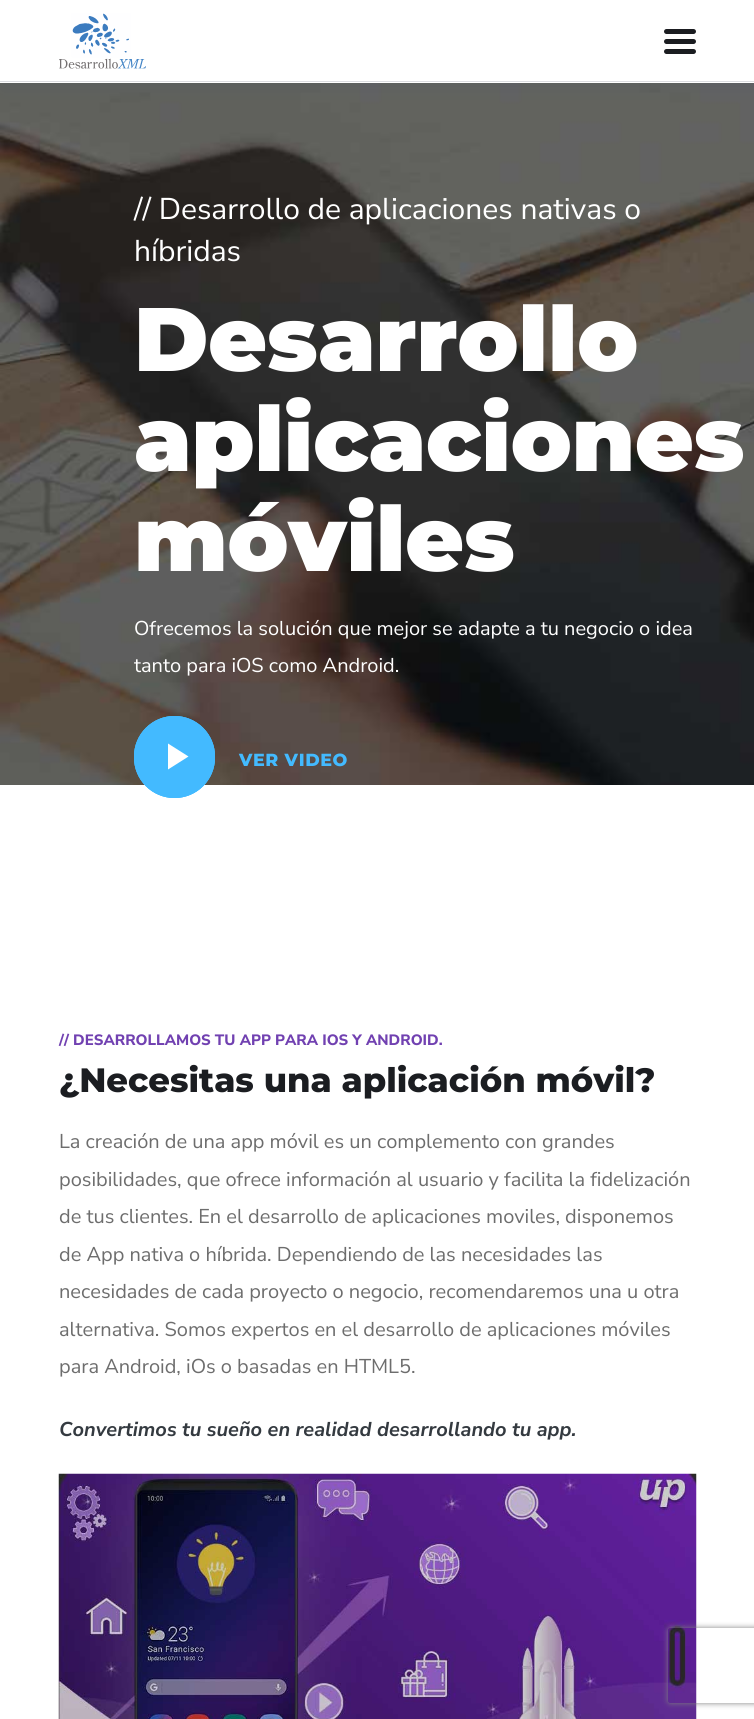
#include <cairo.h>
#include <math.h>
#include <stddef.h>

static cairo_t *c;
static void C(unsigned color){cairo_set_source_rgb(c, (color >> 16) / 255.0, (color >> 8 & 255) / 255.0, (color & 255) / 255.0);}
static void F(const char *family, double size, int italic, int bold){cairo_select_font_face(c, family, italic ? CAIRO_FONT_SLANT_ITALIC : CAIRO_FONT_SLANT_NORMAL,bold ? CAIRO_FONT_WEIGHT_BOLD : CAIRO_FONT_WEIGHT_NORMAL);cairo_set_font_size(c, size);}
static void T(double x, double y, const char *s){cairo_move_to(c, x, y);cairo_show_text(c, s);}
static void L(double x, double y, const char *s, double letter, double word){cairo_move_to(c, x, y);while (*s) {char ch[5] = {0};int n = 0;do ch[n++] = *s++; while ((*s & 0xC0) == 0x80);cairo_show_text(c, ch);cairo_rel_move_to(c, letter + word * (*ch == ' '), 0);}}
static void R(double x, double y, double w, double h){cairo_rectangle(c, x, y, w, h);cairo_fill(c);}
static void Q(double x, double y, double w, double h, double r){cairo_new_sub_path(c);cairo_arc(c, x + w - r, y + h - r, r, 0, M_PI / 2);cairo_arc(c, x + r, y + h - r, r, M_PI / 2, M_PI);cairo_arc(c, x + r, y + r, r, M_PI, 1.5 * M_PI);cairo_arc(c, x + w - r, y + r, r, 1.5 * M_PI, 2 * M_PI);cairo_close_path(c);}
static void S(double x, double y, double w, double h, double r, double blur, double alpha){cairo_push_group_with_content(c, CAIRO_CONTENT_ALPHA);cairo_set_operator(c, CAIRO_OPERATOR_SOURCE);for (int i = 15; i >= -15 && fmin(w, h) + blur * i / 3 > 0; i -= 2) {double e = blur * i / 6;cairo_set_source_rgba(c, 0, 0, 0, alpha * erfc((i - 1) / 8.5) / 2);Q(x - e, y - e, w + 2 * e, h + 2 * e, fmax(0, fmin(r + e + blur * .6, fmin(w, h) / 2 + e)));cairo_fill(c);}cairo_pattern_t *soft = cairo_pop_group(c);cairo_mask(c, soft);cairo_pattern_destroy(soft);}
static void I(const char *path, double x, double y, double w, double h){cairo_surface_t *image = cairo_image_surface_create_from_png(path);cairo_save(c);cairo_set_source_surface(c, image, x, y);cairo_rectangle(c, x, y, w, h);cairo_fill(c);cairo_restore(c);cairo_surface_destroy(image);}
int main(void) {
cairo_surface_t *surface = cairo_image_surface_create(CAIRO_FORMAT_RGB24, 754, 1719);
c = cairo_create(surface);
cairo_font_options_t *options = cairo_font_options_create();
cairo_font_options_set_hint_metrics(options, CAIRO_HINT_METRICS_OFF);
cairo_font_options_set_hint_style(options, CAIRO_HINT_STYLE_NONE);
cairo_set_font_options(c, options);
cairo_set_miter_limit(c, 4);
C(0xffffff);
cairo_paint(c);
I("2.png",0,83,754,702);
C(0x2a4371);
S(3,3,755,82,0,9.5,.15);
C(0xffffff);
R(0,0,754,83);
C(0xdcdde1);
R(0,81,754,1);
I("1.png",59,13,87,56);
C(0x1b1d21);
Q(664,39,32,5,2.5);
cairo_fill(c);
Q(664,29,32,5,2.5);
cairo_fill(c);
Q(664,49,32,5,2.5);
cairo_fill(c);
F("Nunito Sans",30,0,0);
C(0xffffff);
T(134,219,"// Desarrollo de aplicaciones nativas o");
T(134,261,"híbridas");
F("Montserrat Black",90,0,0);
T(134,371,"Desarrollo");
T(134,471,"aplicaciones");
T(134,571,"móviles");
F("Nunito Sans",20,0,0);
T(134,635,"Ofrecemos la solución que mejor se adapte a tu negocio o idea");
T(134,672,"tanto para iOS como Android.");
C(0x43baff);
Q(134,716,81,82,40.5);
cairo_fill(c);
C(0xffffff);
cairo_new_path(c);
cairo_move_to(c,168,743.5);
cairo_line_to(c,188.5,756.5);
cairo_line_to(c,168,769.5);
cairo_close_path(c);
cairo_fill(c);
Q(134.5,716.5,80,81,40);
C(0x43baff);
cairo_set_line_width(c,1);
cairo_stroke(c);
Q(134.5,716.5,80,81,40);
cairo_stroke(c);
F("Montserrat ExtraBold",17.5,0,0);
L(239,766,"VER VIDEO",.6,0);
F("Nunito Sans ExtraBold",15,0,0);
C(0x7141b1);
T(59,1045,"// DESARROLLAMOS TU APP PARA IOS Y ANDROID.");
F("Montserrat ExtraBold",33.75,0,0);
C(0x1b1d21);
T(59,1092,"¿Necesitas una aplicación móvil?");
F("Nunito Sans",20,0,0);
C(0x6d6d6d);
T(59,1148,"La creación de una app móvil es un complemento con grandes");
T(59,1186,"posibilidades, que ofrece información al usuario y facilita la fidelización");
T(59,1223,"de tus clientes. En el desarrollo de aplicaciones moviles, disponemos");
T(59,1261,"de App nativa o híbrida. Dependiendo de las necesidades las");
T(59,1298,"necesidades de cada proyecto o negocio, recomendaremos una u otra");
T(59,1336,"alternativa. Somos expertos en el desarrollo de aplicaciones móviles");
T(59,1373,"para Android, iOs o basadas en HTML5.");
F("Nunito Sans",20,1,1);
C(0x343a40);
T(59,1436,"Convertimos tu sueño en realidad desarrollando tu app.");
I("3.png",58,1473,639,246);
cairo_save(c);
cairo_set_fill_rule(c,CAIRO_FILL_RULE_EVEN_ODD);
cairo_new_path(c);
cairo_move_to(c,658,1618);
cairo_line_to(c,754,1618);
cairo_line_to(c,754,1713);
cairo_line_to(c,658,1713);
cairo_close_path(c);
cairo_move_to(c,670.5,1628);
cairo_line_to(c,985.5,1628);
cairo_curve_to(c,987,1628,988,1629,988,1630.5);
cairo_line_to(c,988,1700.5);
cairo_curve_to(c,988,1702,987,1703,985.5,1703);
cairo_line_to(c,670.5,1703);
cairo_curve_to(c,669,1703,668,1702,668,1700.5);
cairo_line_to(c,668,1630.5);
cairo_curve_to(c,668,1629,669,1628,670.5,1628);
cairo_close_path(c);
cairo_clip(c);
C(0x808080);
S(668,1628,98,75,2.5,3,1);
cairo_restore(c);
cairo_surface_write_to_png(surface, "o.png");
cairo_font_options_destroy(options);
cairo_destroy(c);
cairo_surface_destroy(surface);
return 0;
}
